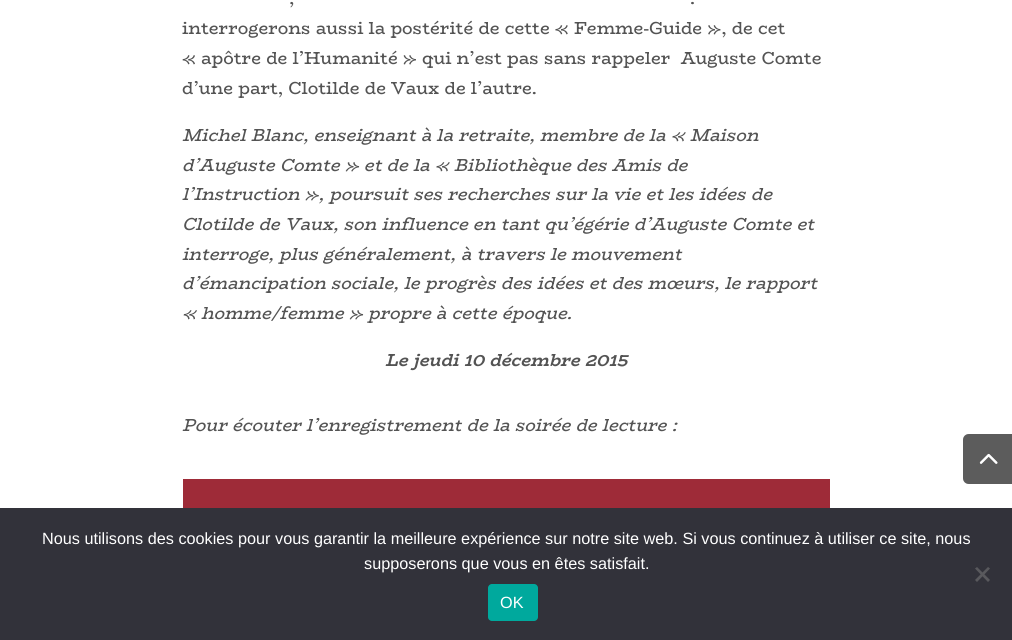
#include <cairo.h>
#include <math.h>
#include <stddef.h>

static cairo_t *c;
static void C(unsigned color){cairo_set_source_rgb(c, (color >> 16) / 255.0, (color >> 8 & 255) / 255.0, (color & 255) / 255.0);}
static void F(const char *family, double size, int italic, int bold){cairo_select_font_face(c, family, italic ? CAIRO_FONT_SLANT_ITALIC : CAIRO_FONT_SLANT_NORMAL,bold ? CAIRO_FONT_WEIGHT_BOLD : CAIRO_FONT_WEIGHT_NORMAL);cairo_set_font_size(c, size);}
static void T(double x, double y, const char *s){cairo_move_to(c, x, y);cairo_show_text(c, s);}
static void R(double x, double y, double w, double h){cairo_rectangle(c, x, y, w, h);cairo_fill(c);}
static void Q(double x, double y, double w, double h, double r){cairo_new_sub_path(c);cairo_arc(c, x + w - r, y + h - r, r, 0, M_PI / 2);cairo_arc(c, x + r, y + h - r, r, M_PI / 2, M_PI);cairo_arc(c, x + r, y + r, r, M_PI, 1.5 * M_PI);cairo_arc(c, x + w - r, y + r, r, 1.5 * M_PI, 2 * M_PI);cairo_close_path(c);}
static void I(const char *path, double x, double y, double w, double h){cairo_surface_t *image = cairo_image_surface_create_from_png(path);cairo_save(c);cairo_set_source_surface(c, image, x, y);cairo_rectangle(c, x, y, w, h);cairo_fill(c);cairo_restore(c);cairo_surface_destroy(image);}
int main(void) {
cairo_surface_t *surface = cairo_image_surface_create(CAIRO_FORMAT_RGB24, 1012, 640);
c = cairo_create(surface);
cairo_font_options_t *options = cairo_font_options_create();
cairo_font_options_set_hint_metrics(options, CAIRO_HINT_METRICS_OFF);
cairo_font_options_set_hint_style(options, CAIRO_HINT_STYLE_NONE);
cairo_set_font_options(c, options);
cairo_set_miter_limit(c, 4);
C(0xffffff);
cairo_paint(c);
F("BioRhyme ExtraBold",17.5,0,0);
C(0x545454);
T(289,4,",");
T(690,4,".");
T(182,34,"interrogerons aussi la postérité de cette « Femme-Guide », de cet");
T(182,64,"« apôtre de l’Humanité » qui n’est pas sans rappeler  Auguste Comte");
T(182,94,"d’une part, Clotilde de Vaux de l’autre.");
F("BioRhyme ExtraBold",17.5,1,0);
T(182,141,"Michel Blanc, enseignant à la retraite, membre de la « Maison");
T(182,171,"d’Auguste Comte » et de la « Bibliothèque des Amis de");
T(182,200,"l’Instruction », poursuit ses recherches sur la vie et les idées de");
T(182,230,"Clotilde de Vaux, son influence en tant qu’égérie d’Auguste Comte et");
T(182,260,"interroge, plus généralement, à travers le mouvement");
T(182,289,"d’émancipation sociale, le progrès des idées et des mœurs, le rapport");
T(182,319,"« homme/femme » propre à cette époque.");
F("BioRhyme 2 ExtraBold",17.5,1,0);
T(385,366,"Le jeudi 10 décembre 2015");
F("BioRhyme ExtraBold",17.5,1,0);
T(182,431,"Pour écouter l’enregistrement de la soirée de lecture :");
C(0x9e2b38);
R(183,479,647,29);
C(0x999999);
cairo_new_path(c);
cairo_move_to(c,969,434);
cairo_line_to(c,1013,434);
cairo_line_to(c,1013,484);
cairo_line_to(c,969,484);
cairo_curve_to(c,965.5,484,963,481.5,963,478);
cairo_line_to(c,963,440);
cairo_curve_to(c,963,436.5,965.5,434,969,434);
cairo_close_path(c);
cairo_fill(c);
I("1.png",979,454,19,10);
cairo_set_source_rgba(c,0,0,0,0.4);
cairo_new_path(c);
cairo_move_to(c,969,434);
cairo_line_to(c,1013,434);
cairo_line_to(c,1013,484);
cairo_line_to(c,969,484);
cairo_curve_to(c,965.5,484,963,481.5,963,478);
cairo_line_to(c,963,440);
cairo_curve_to(c,963,436.5,965.5,434,969,434);
cairo_close_path(c);
cairo_fill(c);
I("2.png",979,453,19,11);
C(0x32323a);
R(0,508,1012,132);
F("Liberation Sans",16.25,0,0);
C(0xffffff);
T(42,544,"Nous utilisons des cookies pour vous garantir la meilleure expérience sur notre site web. Si vous continuez à utiliser ce site, nous");
T(364,569,"supposerons que vous en êtes satisfait.");
C(0x59595d);
cairo_new_path(c);
cairo_move_to(c,988,567);
cairo_line_to(c,990,568.5);
cairo_line_to(c,977,582);
cairo_line_to(c,975,580);
cairo_close_path(c);
cairo_fill(c);
cairo_new_path(c);
cairo_move_to(c,975,568.5);
cairo_line_to(c,977,567);
cairo_line_to(c,990,580);
cairo_line_to(c,988,582);
cairo_close_path(c);
cairo_fill(c);
C(0x00a99d);
Q(488,584,50,37,4);
cairo_fill(c);
C(0xffffff);
T(500,608,"OK");
cairo_surface_write_to_png(surface, "o.png");
cairo_font_options_destroy(options);
cairo_destroy(c);
cairo_surface_destroy(surface);
return 0;
}
